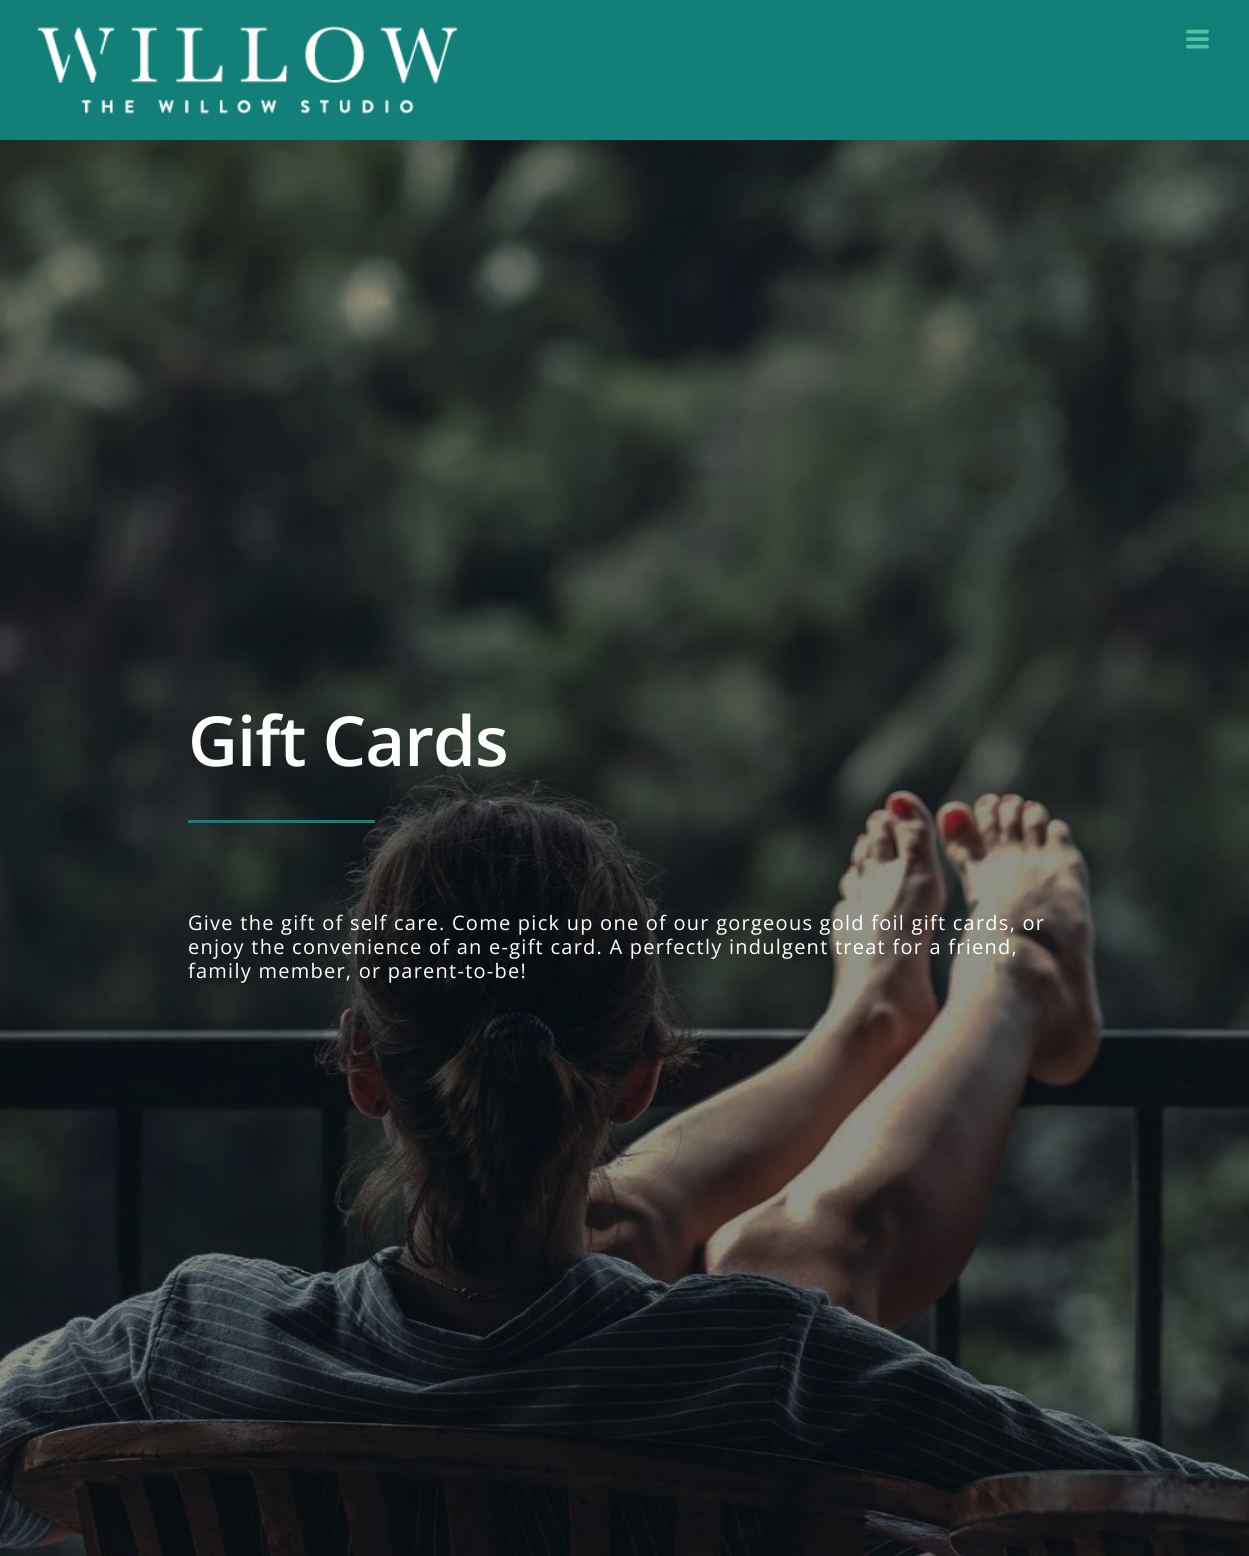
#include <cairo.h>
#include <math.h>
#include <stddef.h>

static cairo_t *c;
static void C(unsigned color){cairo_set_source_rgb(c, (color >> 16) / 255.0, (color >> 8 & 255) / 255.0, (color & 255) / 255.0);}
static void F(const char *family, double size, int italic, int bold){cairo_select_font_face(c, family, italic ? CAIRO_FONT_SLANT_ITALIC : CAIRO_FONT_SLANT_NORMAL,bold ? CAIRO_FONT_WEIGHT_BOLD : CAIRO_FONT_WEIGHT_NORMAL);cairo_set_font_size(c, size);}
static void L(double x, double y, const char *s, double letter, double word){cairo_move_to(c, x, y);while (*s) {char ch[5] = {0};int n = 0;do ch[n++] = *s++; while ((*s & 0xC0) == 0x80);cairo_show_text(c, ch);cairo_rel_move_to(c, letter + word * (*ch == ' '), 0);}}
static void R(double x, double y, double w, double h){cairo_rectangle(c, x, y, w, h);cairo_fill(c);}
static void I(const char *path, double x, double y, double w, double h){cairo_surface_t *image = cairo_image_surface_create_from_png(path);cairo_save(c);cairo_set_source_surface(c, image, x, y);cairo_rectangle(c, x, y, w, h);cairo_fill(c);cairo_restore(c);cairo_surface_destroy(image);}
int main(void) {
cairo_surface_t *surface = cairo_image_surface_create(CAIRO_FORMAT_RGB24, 1249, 1556);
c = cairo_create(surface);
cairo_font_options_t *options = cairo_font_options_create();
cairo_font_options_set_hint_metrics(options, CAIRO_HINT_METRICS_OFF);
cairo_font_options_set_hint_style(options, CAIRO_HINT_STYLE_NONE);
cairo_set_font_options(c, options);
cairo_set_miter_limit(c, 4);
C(0xffffff);
cairo_paint(c);
C(0x127f78);
R(0,0,1249,140);
I("1.png",37,26,421,88);
I("2.png",1186,29,23,20);
I("3.png",0,140,1249,1416);
F("Open Sans SemiBold",69,0,0);
C(0xffffff);
L(188,766,"Gift Cards",-1,0);
C(0x127f78);
R(188,820,187,3);
F("Open Sans",20,0,0);
C(0xffffff);
L(188,930,"Give the gift of self care. Come pick up one of our gorgeous gold foil gift cards, or",1.25,0);
L(188,954,"enjoy the convenience of an e-gift card. A perfectly indulgent treat for a friend,",1.25,0);
L(188,978,"family member, or parent-to-be!",1.25,0);
cairo_surface_write_to_png(surface, "o.png");
cairo_font_options_destroy(options);
cairo_destroy(c);
cairo_surface_destroy(surface);
return 0;
}
